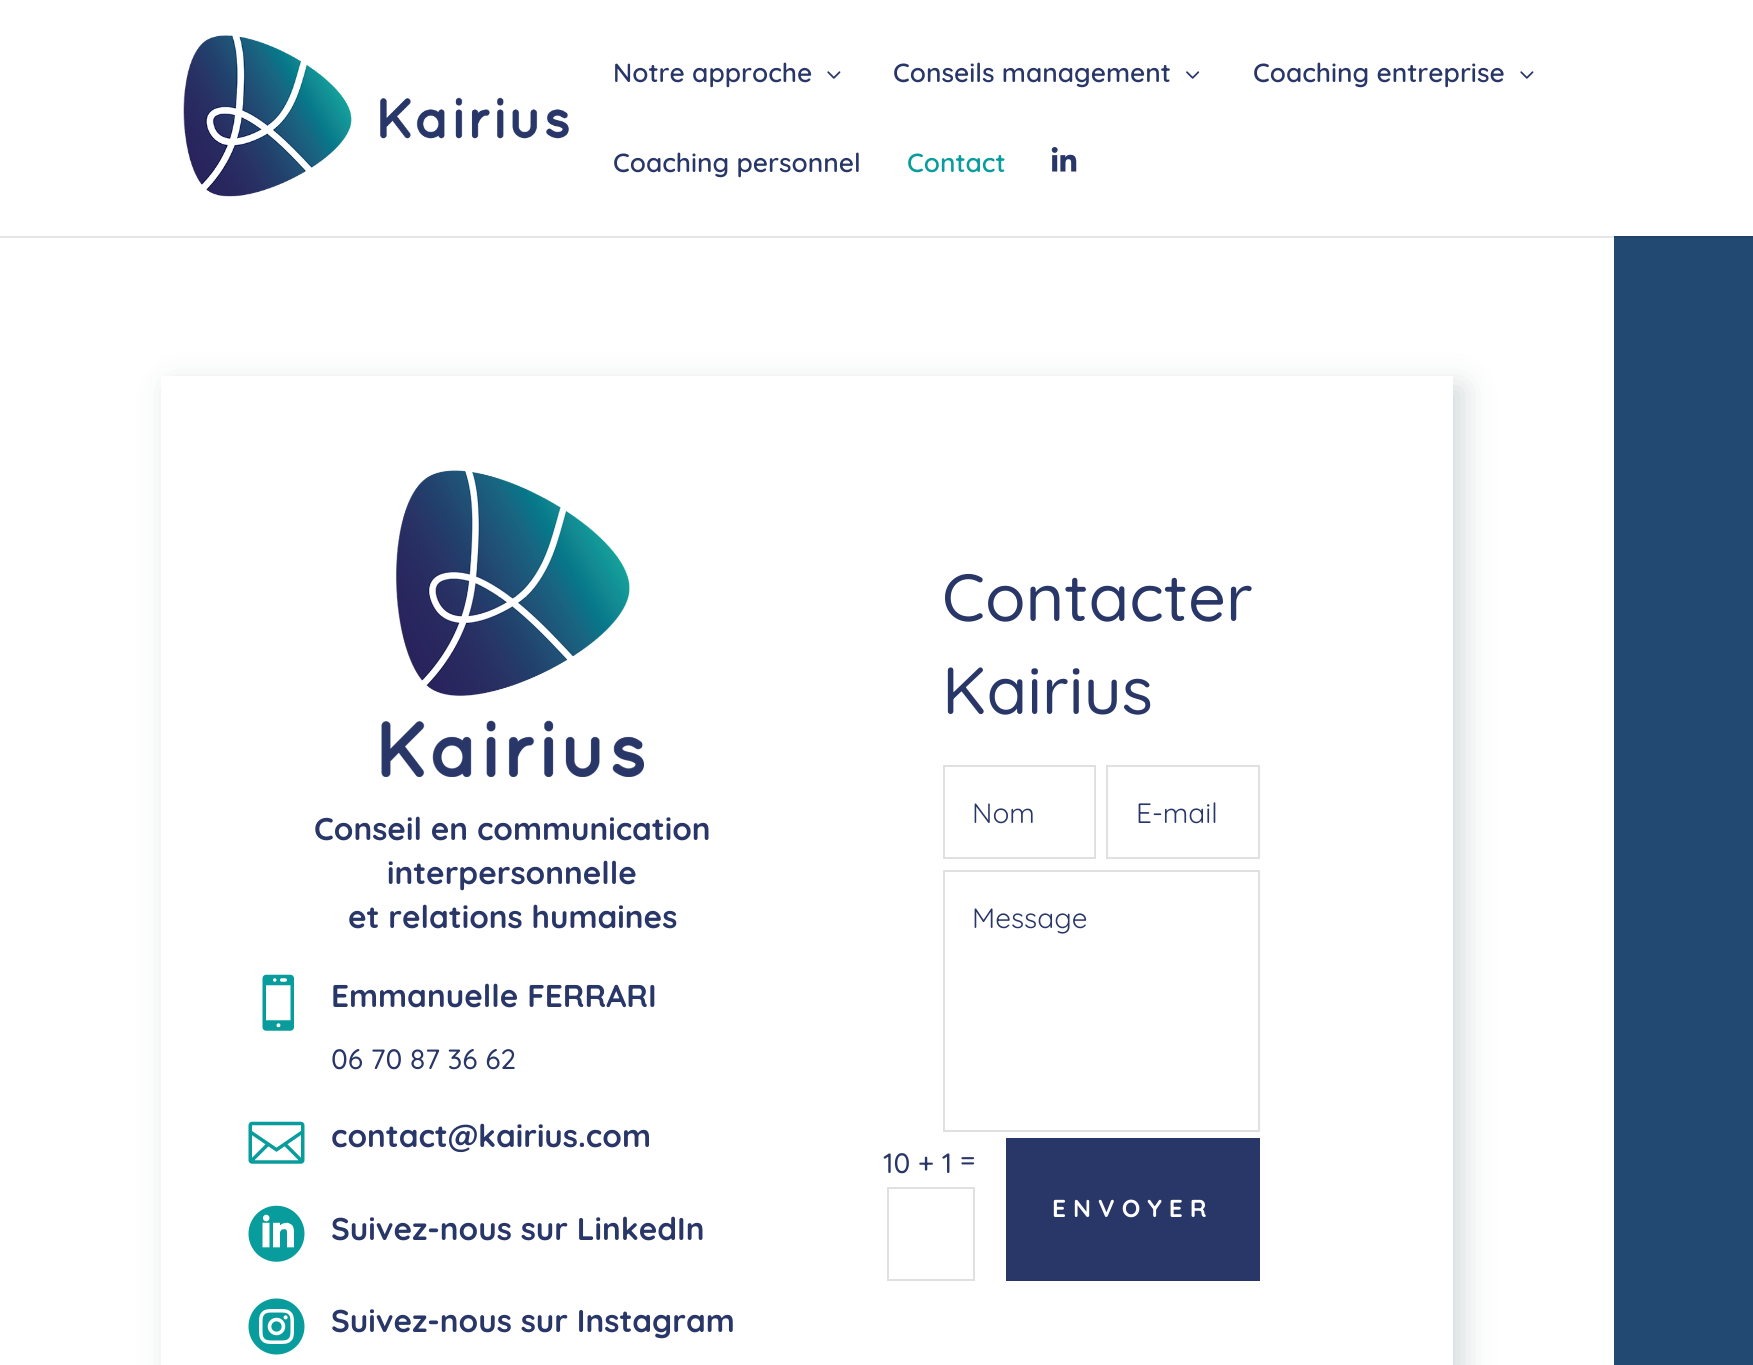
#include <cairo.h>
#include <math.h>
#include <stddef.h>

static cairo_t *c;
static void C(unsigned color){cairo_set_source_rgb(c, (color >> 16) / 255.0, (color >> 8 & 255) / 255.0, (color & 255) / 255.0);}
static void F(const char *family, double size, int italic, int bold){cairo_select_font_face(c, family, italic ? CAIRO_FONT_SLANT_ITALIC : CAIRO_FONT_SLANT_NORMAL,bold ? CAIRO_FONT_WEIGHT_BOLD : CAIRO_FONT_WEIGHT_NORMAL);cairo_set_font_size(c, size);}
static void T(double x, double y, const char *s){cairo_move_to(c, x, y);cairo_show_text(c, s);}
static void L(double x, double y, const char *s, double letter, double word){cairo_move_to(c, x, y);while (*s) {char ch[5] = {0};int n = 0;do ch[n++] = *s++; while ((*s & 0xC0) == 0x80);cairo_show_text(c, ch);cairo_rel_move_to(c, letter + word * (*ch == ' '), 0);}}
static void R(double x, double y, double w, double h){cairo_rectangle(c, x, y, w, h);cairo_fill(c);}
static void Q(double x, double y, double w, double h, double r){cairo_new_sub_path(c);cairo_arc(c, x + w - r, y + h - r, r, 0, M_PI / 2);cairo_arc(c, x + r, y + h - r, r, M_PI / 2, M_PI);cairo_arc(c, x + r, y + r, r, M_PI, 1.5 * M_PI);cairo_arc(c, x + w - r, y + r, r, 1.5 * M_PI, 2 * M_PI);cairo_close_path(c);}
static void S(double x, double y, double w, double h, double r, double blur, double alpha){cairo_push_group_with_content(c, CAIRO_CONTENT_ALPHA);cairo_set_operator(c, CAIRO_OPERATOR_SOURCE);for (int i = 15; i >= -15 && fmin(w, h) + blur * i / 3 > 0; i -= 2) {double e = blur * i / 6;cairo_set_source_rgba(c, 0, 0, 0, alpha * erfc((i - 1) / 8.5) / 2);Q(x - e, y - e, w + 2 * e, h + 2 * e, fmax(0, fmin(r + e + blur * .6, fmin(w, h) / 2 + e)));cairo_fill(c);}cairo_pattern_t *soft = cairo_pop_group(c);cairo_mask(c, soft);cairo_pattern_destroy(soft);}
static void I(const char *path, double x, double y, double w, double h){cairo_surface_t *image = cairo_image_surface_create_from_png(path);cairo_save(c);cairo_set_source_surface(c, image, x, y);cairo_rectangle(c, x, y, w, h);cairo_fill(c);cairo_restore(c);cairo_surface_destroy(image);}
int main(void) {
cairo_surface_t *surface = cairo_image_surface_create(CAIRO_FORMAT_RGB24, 1753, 1365);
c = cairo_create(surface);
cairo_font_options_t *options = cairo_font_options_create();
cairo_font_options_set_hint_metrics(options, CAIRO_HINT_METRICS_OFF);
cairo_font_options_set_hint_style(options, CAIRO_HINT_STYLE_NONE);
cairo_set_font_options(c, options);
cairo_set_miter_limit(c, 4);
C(0xffffff);
cairo_paint(c);
C(0x224971);
R(1614,236,139,1129);
cairo_set_source_rgba(c,0,0,0,0.1);
cairo_new_path(c);
cairo_move_to(c,0,236);
cairo_line_to(c,0,238);
cairo_line_to(c,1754,238);
cairo_line_to(c,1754,2);
cairo_line_to(c,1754,236);
cairo_close_path(c);
cairo_fill(c);
I("1.png",183,35,386,162);
F("Quicksand SemiBold",26.25,0,0);
C(0x293668);
T(613,82,"Notre approche");
I("2.png",827,71,14,8);
T(893,82,"Conseils management");
I("3.png",1186,71,14,8);
T(1253,82,"Coaching entreprise");
I("2.png",1520,71,14,8);
T(613,172,"Coaching personnel");
C(0x089c9c);
T(907,172,"Contact");
I("4.png",1051,147,26,25);
cairo_save(c);
cairo_set_fill_rule(c,CAIRO_FILL_RULE_EVEN_ODD);
cairo_new_path(c);
cairo_move_to(c,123,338);
cairo_line_to(c,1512,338);
cairo_line_to(c,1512,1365);
cairo_line_to(c,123,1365);
cairo_close_path(c);
cairo_move_to(c,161,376);
cairo_line_to(c,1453,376);
cairo_line_to(c,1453,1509);
cairo_line_to(c,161,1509);
cairo_close_path(c);
cairo_clip(c);
C(0x1d3d47);
S(172,387,1291,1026,0,16,.2);
cairo_restore(c);
I("5.png",381,470,263,307);
F("Quicksand",31.5,0,1);
C(0x293668);
T(314,840,"Conseil en communication");
T(387,884,"interpersonnelle");
T(348,928,"et relations humaines");
I("6.png",262,974,32,57);
T(331,1007,"Emmanuelle FERRARI");
F("Quicksand Medium",28,0,0);
T(331,1069,"06 70 87 36 62");
I("7.png",248,1121,57,43);
F("Quicksand",31.5,0,1);
T(331,1147,"contact@kairius.com");
I("8.png",248,1205,57,57);
T(331,1240,"Suivez-nous sur LinkedIn");
I("9.png",248,1298,57,57);
T(331,1332,"Suivez-nous sur Instagram");
F("Quicksand Medium",66.5,0,0);
T(942,621,"Contacter");
T(942,714,"Kairius");
cairo_rectangle(c,944,766,151,92);
C(0xe0e0e0);
cairo_stroke(c);
F("Quicksand",28,0,0);
C(0x293668);
T(972,823,"Nom");
cairo_rectangle(c,1107,766,152,92);
C(0xe0e0e0);
cairo_stroke(c);
C(0x293668);
T(1136,823,"E-mail");
cairo_rectangle(c,944,871,315,260);
C(0xe0e0e0);
cairo_stroke(c);
C(0x293668);
T(972,928,"Message");
F("Quicksand Medium",28,0,0);
T(883,1173,"10 + 1");
T(960,1170,"=");
cairo_rectangle(c,888,1188,86,92);
C(0xe0e0e0);
cairo_stroke(c);
C(0x293668);
R(1006,1138,254,143);
F("Quicksand",24.5,0,1);
C(0xffffff);
L(1052,1217,"ENVOYER",7,0);
cairo_surface_write_to_png(surface, "o.png");
cairo_font_options_destroy(options);
cairo_destroy(c);
cairo_surface_destroy(surface);
return 0;
}
